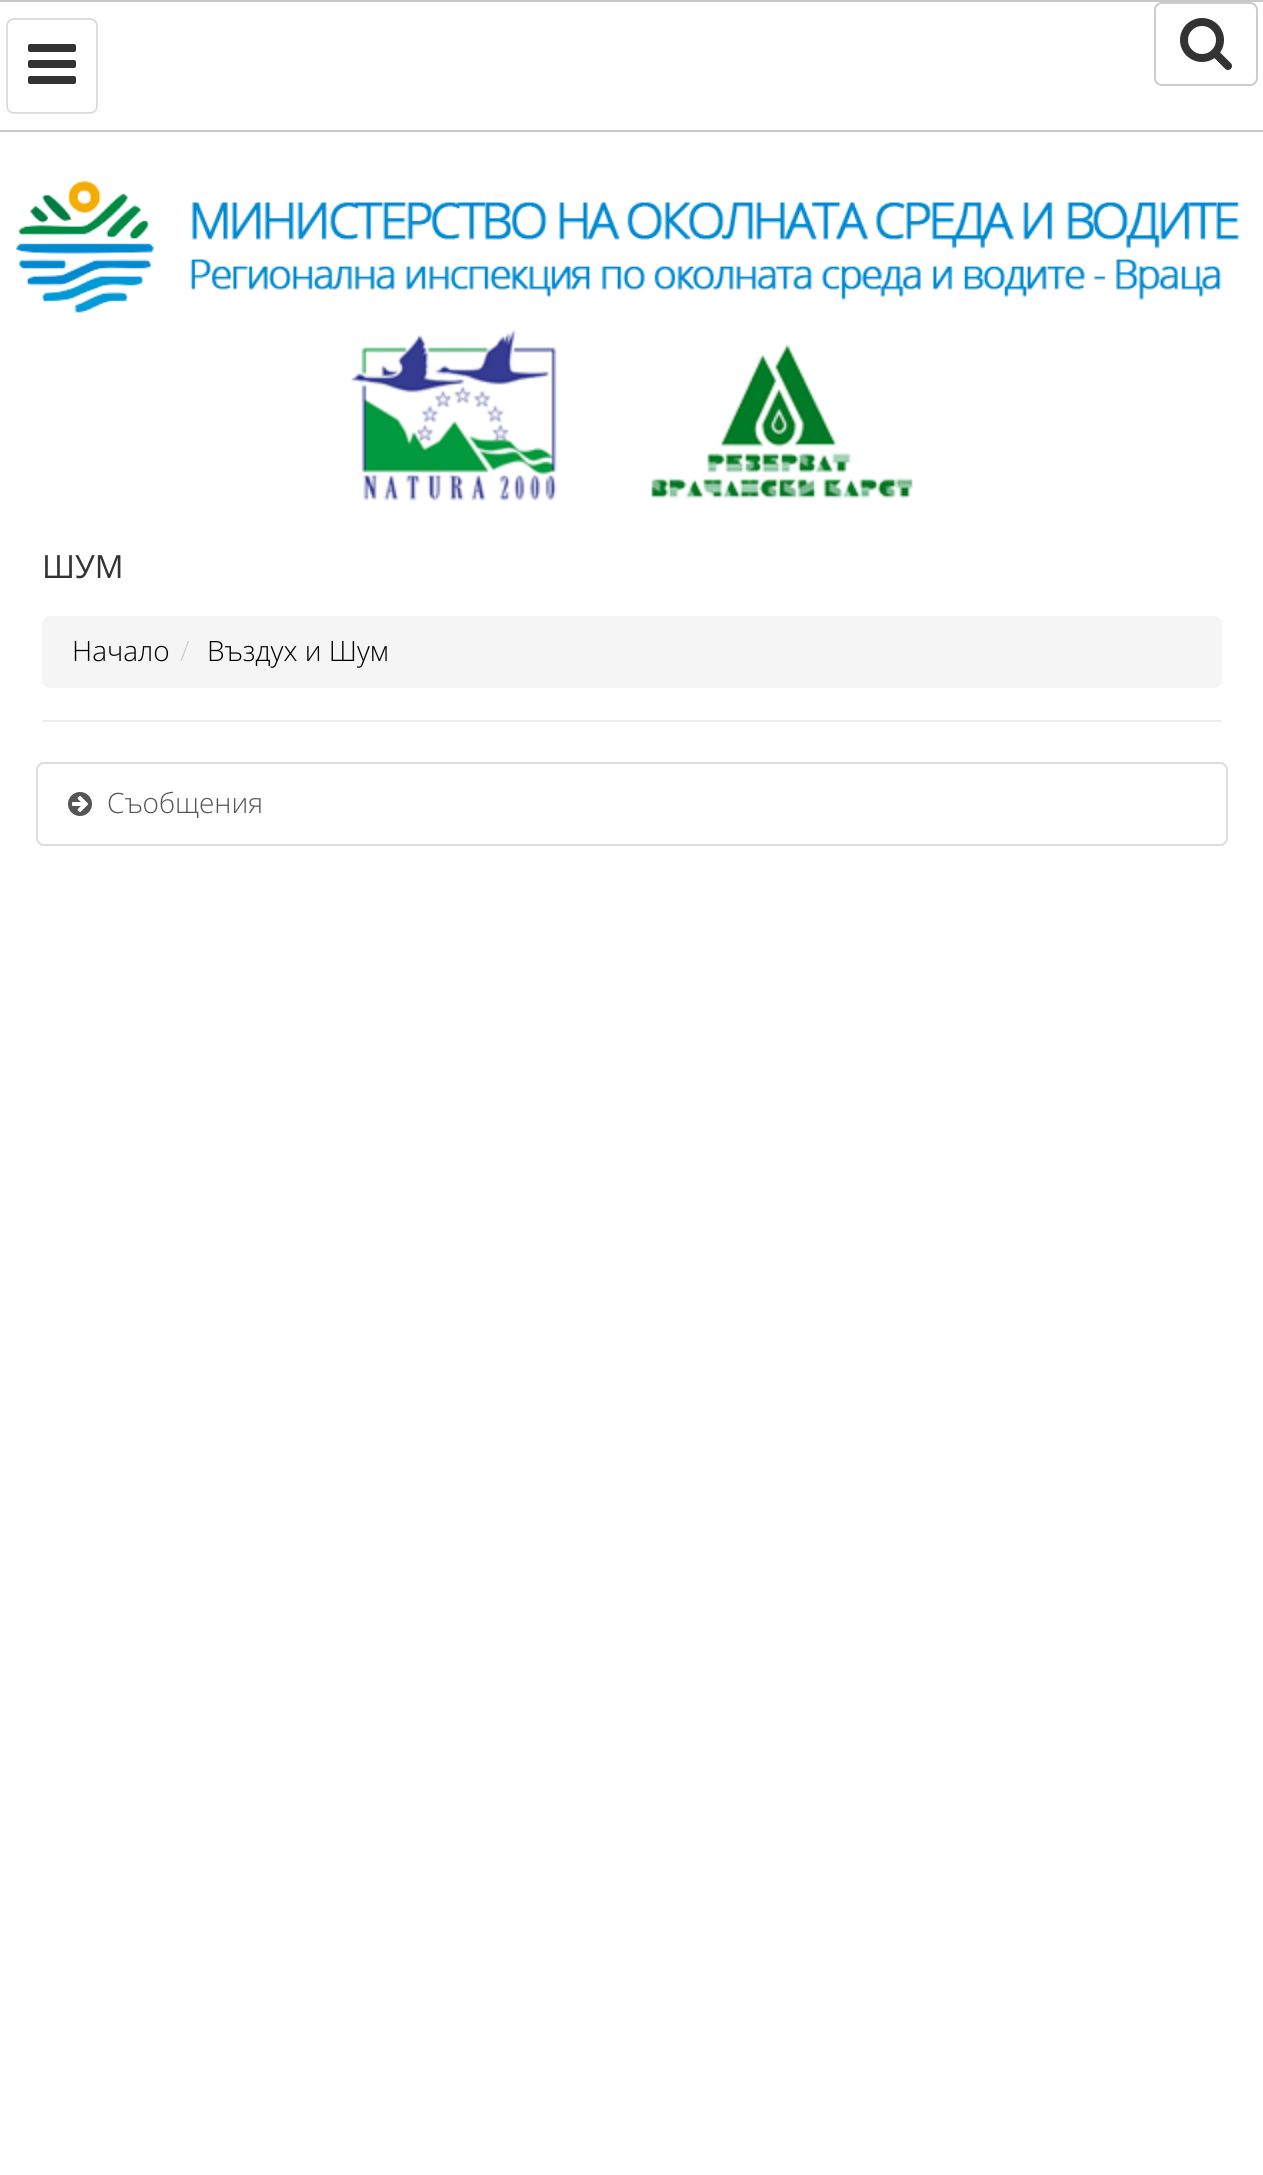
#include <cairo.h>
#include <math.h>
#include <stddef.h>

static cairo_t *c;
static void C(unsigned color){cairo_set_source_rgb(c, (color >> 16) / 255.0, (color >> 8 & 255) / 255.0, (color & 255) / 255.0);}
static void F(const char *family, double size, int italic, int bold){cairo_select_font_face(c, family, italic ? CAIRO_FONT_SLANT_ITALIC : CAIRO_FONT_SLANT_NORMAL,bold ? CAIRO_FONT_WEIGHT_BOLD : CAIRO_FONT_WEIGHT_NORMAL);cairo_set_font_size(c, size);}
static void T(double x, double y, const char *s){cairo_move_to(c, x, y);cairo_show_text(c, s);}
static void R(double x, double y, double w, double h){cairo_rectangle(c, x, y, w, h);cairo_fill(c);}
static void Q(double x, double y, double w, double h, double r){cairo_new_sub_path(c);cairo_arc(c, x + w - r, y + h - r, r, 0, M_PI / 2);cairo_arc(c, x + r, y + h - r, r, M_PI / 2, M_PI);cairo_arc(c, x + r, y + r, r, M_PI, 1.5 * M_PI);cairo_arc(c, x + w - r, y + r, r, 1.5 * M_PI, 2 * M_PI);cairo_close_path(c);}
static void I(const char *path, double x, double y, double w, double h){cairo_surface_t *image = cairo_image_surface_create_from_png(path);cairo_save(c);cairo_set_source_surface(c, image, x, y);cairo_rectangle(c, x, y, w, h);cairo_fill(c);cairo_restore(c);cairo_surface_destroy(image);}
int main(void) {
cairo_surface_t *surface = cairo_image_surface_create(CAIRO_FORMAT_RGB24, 1263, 2175);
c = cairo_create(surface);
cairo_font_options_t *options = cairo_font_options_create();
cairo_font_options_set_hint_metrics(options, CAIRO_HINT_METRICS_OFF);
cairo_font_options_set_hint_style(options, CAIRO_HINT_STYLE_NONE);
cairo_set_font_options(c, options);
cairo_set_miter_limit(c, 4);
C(0xffffff);
cairo_paint(c);
C(0xc9c9c9);
R(0,0,1263,2);
R(0,130,1263,2);
Q(7,19,90,94,7);
C(0xdddddd);
cairo_stroke(c);
I("1.png",28,44,48,40);
Q(1155,3,102,82,7);
C(0xcccccc);
cairo_stroke(c);
I("2.png",1180,18,52,52);
I("3.png",16,181,1224,132);
I("4.png",351,329,206,172);
I("5.png",651,344,262,155);
F("Open Sans",32,0,0);
C(0x333333);
T(42,578,"ШУМ");
C(0xeeeeee);
R(42,720,1180,2);
C(0xf5f5f5);
Q(42,616,1180,72,8);
cairo_fill(c);
F("Open Sans Light",28,0,0);
C(0x000000);
T(72,661,"Начало");
C(0xcccccc);
T(180,661,"/");
C(0x000000);
T(207,661,"Въздух и Шум");
Q(37,763,1190,82,7);
C(0xdddddd);
cairo_stroke(c);
I("6.png",68,792,24,24);
C(0x555555);
T(107,813,"Съобщения");
cairo_surface_write_to_png(surface, "o.png");
cairo_font_options_destroy(options);
cairo_destroy(c);
cairo_surface_destroy(surface);
return 0;
}
